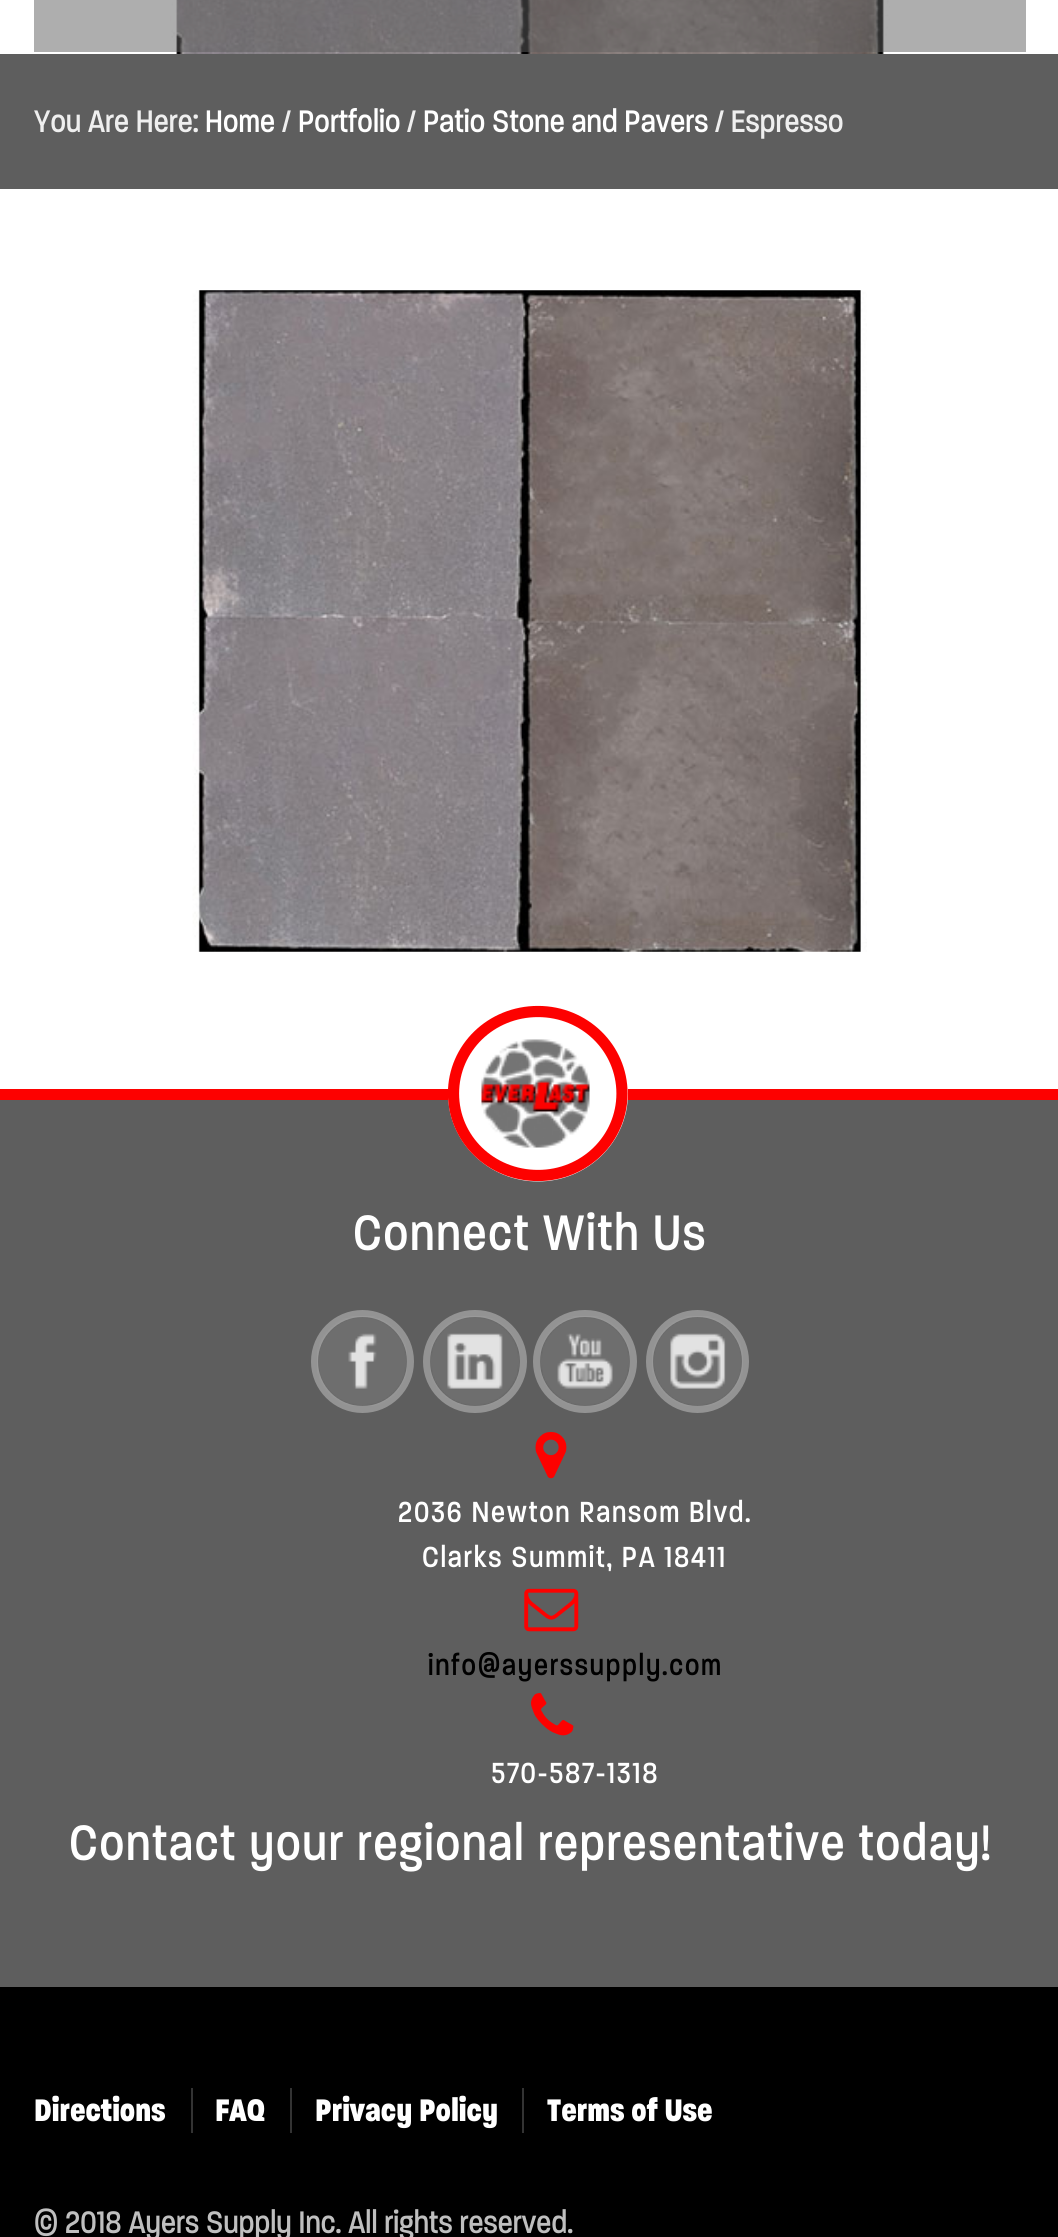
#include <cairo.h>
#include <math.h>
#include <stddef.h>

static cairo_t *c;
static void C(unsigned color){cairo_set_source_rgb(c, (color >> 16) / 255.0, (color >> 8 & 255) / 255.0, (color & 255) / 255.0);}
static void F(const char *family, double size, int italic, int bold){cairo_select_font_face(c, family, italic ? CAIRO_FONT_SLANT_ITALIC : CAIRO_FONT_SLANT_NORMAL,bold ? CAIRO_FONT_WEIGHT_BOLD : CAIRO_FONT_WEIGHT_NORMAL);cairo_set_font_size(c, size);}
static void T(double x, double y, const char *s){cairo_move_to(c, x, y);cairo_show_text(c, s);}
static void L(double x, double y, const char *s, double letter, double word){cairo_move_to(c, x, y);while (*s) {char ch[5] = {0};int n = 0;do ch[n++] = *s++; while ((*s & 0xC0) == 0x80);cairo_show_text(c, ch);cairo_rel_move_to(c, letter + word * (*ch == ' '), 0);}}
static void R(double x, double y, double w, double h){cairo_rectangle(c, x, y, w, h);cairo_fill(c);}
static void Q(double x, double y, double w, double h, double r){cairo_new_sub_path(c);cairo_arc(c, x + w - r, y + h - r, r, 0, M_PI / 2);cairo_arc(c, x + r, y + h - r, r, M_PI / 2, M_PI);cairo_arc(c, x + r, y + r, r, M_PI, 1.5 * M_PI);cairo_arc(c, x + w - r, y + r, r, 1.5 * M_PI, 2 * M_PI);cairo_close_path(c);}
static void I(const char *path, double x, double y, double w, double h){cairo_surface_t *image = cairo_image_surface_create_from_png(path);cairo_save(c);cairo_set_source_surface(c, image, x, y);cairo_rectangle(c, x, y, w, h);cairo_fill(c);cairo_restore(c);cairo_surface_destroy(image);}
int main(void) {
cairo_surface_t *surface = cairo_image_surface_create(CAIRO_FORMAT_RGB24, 1058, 2237);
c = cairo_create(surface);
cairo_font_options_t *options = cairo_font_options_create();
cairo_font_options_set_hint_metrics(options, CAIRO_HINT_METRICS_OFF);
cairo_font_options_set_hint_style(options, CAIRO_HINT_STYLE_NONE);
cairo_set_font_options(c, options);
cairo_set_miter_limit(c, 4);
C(0xffffff);
cairo_paint(c);
I("1.png",0,0,1058,54);
C(0x5e5e5e);
R(0,54,1058,135);
F("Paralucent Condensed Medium",33.75,0,0);
C(0xefefef);
T(34,132,"You Are Here:");
C(0xffffff);
T(205,132,"Home");
C(0xefefef);
T(282,132,"/");
C(0xffffff);
T(298,132,"Portfolio");
C(0xefefef);
T(407,132,"/");
C(0xffffff);
T(423,132,"Patio Stone and Pavers");
C(0xefefef);
T(715,132,"/ Espresso");
I("2.png",192,290,675,662);
C(0xfd0100);
R(0,1089,1058,11);
C(0x5e5e5e);
R(0,1100,1058,887);
C(0xffffff);
cairo_new_path(c);
cairo_move_to(c,538,1005.5);
cairo_curve_to(c,587.5,1005.5,628,1045,628,1093.5);
cairo_curve_to(c,628,1142,587.5,1181.5,538,1181.5);
cairo_curve_to(c,488.5,1181.5,448,1142,448,1093.5);
cairo_curve_to(c,448,1045,488.5,1005.5,538,1005.5);
cairo_close_path(c);
cairo_fill(c);
cairo_new_path(c);
cairo_move_to(c,538,1011.5);
cairo_curve_to(c,584.5,1011.5,622,1048,622,1093.5);
cairo_curve_to(c,622,1139,584.5,1175.5,538,1175.5);
cairo_curve_to(c,491,1175.5,453.5,1139,453.5,1093.5);
cairo_curve_to(c,453.5,1048,491,1011.5,538,1011.5);
cairo_close_path(c);
C(0xfd0100);
cairo_set_line_width(c,11.2);
cairo_stroke(c);
I("3.png",481,1039,109,109);
F("Paralucent Condensed Medium",54,0,0);
C(0xffffff);
L(353,1250,"Connect With Us",1.7,0);
I("4.png",317,1316,90,90);
cairo_arc(c,362.5,1361.5,48,0,2 * M_PI);
cairo_set_source_rgba(c,1,1,1,0.33);
cairo_set_line_width(c,7);
cairo_stroke(c);
I("5.png",430,1316,90,90);
Q(426.5,1313.5,97,96,48);
cairo_stroke(c);
I("6.png",540,1316,90,90);
Q(536.5,1313.5,97,96,48);
cairo_stroke(c);
I("7.png",652,1316,91,90);
cairo_arc(c,697.5,1361.5,48,0,2 * M_PI);
cairo_stroke(c);
I("8.png",535,1432,32,47);
F("Paralucent Condensed Medium",31.5,0,0);
C(0xffffff);
L(398,1522,"2036 Newton Ransom Blvd.",1.7,0);
L(422,1567,"Clarks Summit, PA 18411",1.7,0);
I("9.png",524,1588,55,44);
C(0x000000);
L(428,1675,"info@ayerssupply.com",1.7,0);
I("10.png",531,1693,43,43);
C(0xffffff);
L(491,1783,"570-587-1318",1.7,0);
F("Paralucent Condensed Medium",54,0,0);
L(69,1860,"Contact your regional representative today!",1.7,0);
C(0x000000);
R(0,1987,1058,250);
F("Paralucent Condensed Black",33.75,0,0);
C(0xffffff);
T(34,2121,"Directions");
C(0x333333);
R(191,2088,2,45);
C(0xffffff);
T(215,2121,"FAQ");
C(0x333333);
R(290,2088,2,45);
C(0xffffff);
T(315,2121,"Privacy Policy");
C(0x333333);
R(522,2088,2,45);
C(0xffffff);
T(547,2121,"Terms of Use");
F("Paralucent Condensed Medium",33.75,0,0);
C(0xbfbfbf);
T(34,2233,"© 2018 Ayers Supply Inc. All rights reserved.");
cairo_surface_write_to_png(surface, "o.png");
cairo_font_options_destroy(options);
cairo_destroy(c);
cairo_surface_destroy(surface);
return 0;
}
